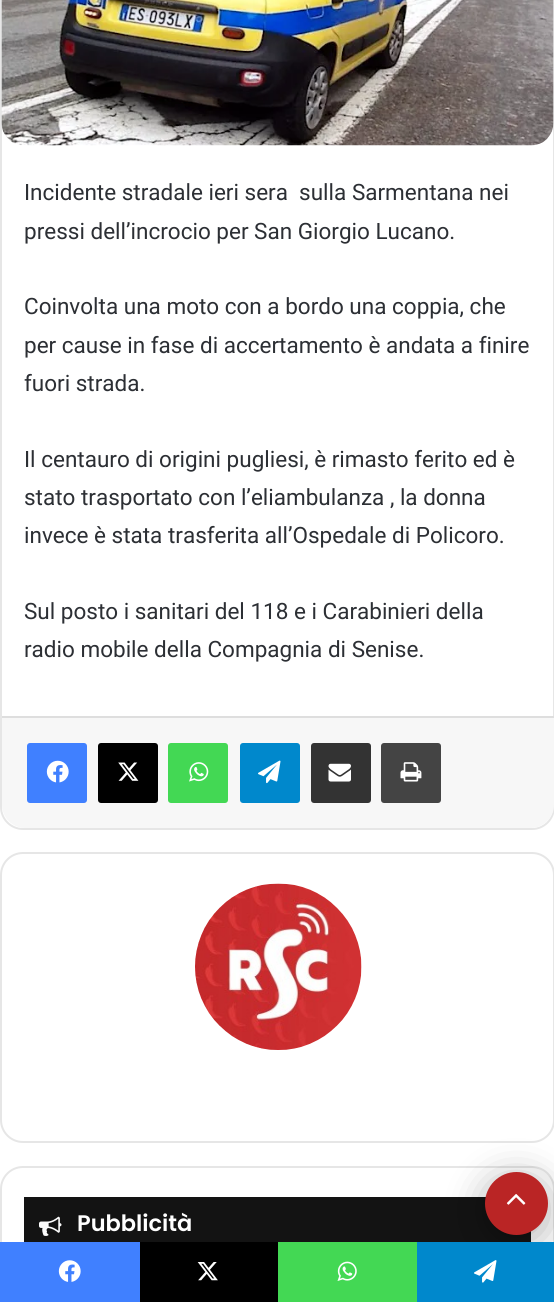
#include <cairo.h>
#include <math.h>
#include <stddef.h>

static cairo_t *c;
static void C(unsigned color){cairo_set_source_rgb(c, (color >> 16) / 255.0, (color >> 8 & 255) / 255.0, (color & 255) / 255.0);}
static void F(const char *family, double size, int italic, int bold){cairo_select_font_face(c, family, italic ? CAIRO_FONT_SLANT_ITALIC : CAIRO_FONT_SLANT_NORMAL,bold ? CAIRO_FONT_WEIGHT_BOLD : CAIRO_FONT_WEIGHT_NORMAL);cairo_set_font_size(c, size);}
static void T(double x, double y, const char *s){cairo_move_to(c, x, y);cairo_show_text(c, s);}
static void R(double x, double y, double w, double h){cairo_rectangle(c, x, y, w, h);cairo_fill(c);}
static void Q(double x, double y, double w, double h, double r){cairo_new_sub_path(c);cairo_arc(c, x + w - r, y + h - r, r, 0, M_PI / 2);cairo_arc(c, x + r, y + h - r, r, M_PI / 2, M_PI);cairo_arc(c, x + r, y + r, r, M_PI, 1.5 * M_PI);cairo_arc(c, x + w - r, y + r, r, 1.5 * M_PI, 2 * M_PI);cairo_close_path(c);}
static void S(double x, double y, double w, double h, double r, double blur, double alpha){cairo_push_group_with_content(c, CAIRO_CONTENT_ALPHA);cairo_set_operator(c, CAIRO_OPERATOR_SOURCE);for (int i = 15; i >= -15 && fmin(w, h) + blur * i / 3 > 0; i -= 2) {double e = blur * i / 6;cairo_set_source_rgba(c, 0, 0, 0, alpha * erfc((i - 1) / 8.5) / 2);Q(x - e, y - e, w + 2 * e, h + 2 * e, fmax(0, fmin(r + e + blur * .6, fmin(w, h) / 2 + e)));cairo_fill(c);}cairo_pattern_t *soft = cairo_pop_group(c);cairo_mask(c, soft);cairo_pattern_destroy(soft);}
static void I(const char *path, double x, double y, double w, double h){cairo_surface_t *image = cairo_image_surface_create_from_png(path);cairo_save(c);cairo_set_source_surface(c, image, x, y);cairo_rectangle(c, x, y, w, h);cairo_fill(c);cairo_restore(c);cairo_surface_destroy(image);}
int main(void) {
cairo_surface_t *surface = cairo_image_surface_create(CAIRO_FORMAT_RGB24, 554, 1302);
c = cairo_create(surface);
cairo_font_options_t *options = cairo_font_options_create();
cairo_font_options_set_hint_metrics(options, CAIRO_HINT_METRICS_OFF);
cairo_font_options_set_hint_style(options, CAIRO_HINT_STYLE_NONE);
cairo_set_font_options(c, options);
cairo_set_miter_limit(c, 4);
C(0xffffff);
cairo_paint(c);
Q(1,-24,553,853,22);
C(0xe6e6e6);
cairo_stroke(c);
I("1.png",1,0,553,146);
F("Roboto",22.5,0,0);
C(0x2c2f34);
T(24,200,"Incidente stradale ieri sera  sulla Sarmentana nei");
T(24,239,"pressi dell’incrocio per San Giorgio Lucano.");
T(24,314,"Coinvolta una moto con a bordo una coppia, che");
T(24,353,"per cause in fase di accertamento è andata a finire");
T(24,391,"fuori strada.");
T(24,467,"Il centauro di origini pugliesi, è rimasto ferito ed è");
T(24,505,"stato trasportato con l’eliambulanza , la donna");
T(24,543,"invece è stata trasferita all’Ospedale di Policoro.");
T(24,619,"Sul posto i sanitari del 118 e i Carabinieri della");
T(24,657,"radio mobile della Compagnia di Senise.");
C(0xf7f7f7);
cairo_new_path(c);
cairo_move_to(c,2,716);
cairo_line_to(c,554,716);
cairo_line_to(c,554,805);
cairo_curve_to(c,554,817.5,543.5,828,531,828);
cairo_line_to(c,25,828);
cairo_curve_to(c,12.5,828,2,817.5,2,805);
cairo_close_path(c);
cairo_fill(c);
C(0xdedede);
R(2,716,552,2);
C(0x4080ff);
Q(27,743,60,60,3);
cairo_fill(c);
I("2.png",46,760,23,23);
C(0x000000);
Q(98,743,60,60,3);
cairo_fill(c);
I("3.png",118,762,21,19);
C(0x43d854);
Q(168,743,60,60,3);
cairo_fill(c);
I("4.png",189,762,20,20);
C(0x0088cc);
Q(240,743,60,60,3);
cairo_fill(c);
I("5.png",258,760,23,24);
C(0x333333);
Q(311,743,60,60,3);
cairo_fill(c);
I("6.png",328,763,23,19);
C(0x444444);
Q(381,743,60,60,3);
cairo_fill(c);
I("7.png",400,762,22,20);
Q(1,853,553,289,22);
C(0xe6e6e6);
cairo_stroke(c);
I("8.png",195,883,167,167);
Q(1,1167,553,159,22);
cairo_stroke(c);
C(0x131313);
R(24,1197,507,45);
I("9.png",39,1216,23,20);
F("Poppins SemiBold",22.5,0,0);
C(0xffffff);
T(77,1231,"Pubblicità");
C(0x000000);
S(485,1179,63,63,31.5,19,.3);
C(0xba2525);
cairo_arc(c,516.5,1203.5,31.5,0,2 * M_PI);
cairo_fill(c);
I("10.png",506,1194,20,11);
C(0x4080ff);
R(0,1242,140,60);
I("11.png",58,1260,23,22);
C(0x000000);
R(140,1242,138,60);
I("12.png",197,1262,21,19);
C(0x43d854);
R(278,1242,139,60);
I("13.png",337,1261,20,20);
C(0x0088cc);
R(417,1242,137,60);
I("14.png",474,1260,23,23);
cairo_surface_write_to_png(surface, "o.png");
cairo_font_options_destroy(options);
cairo_destroy(c);
cairo_surface_destroy(surface);
return 0;
}
